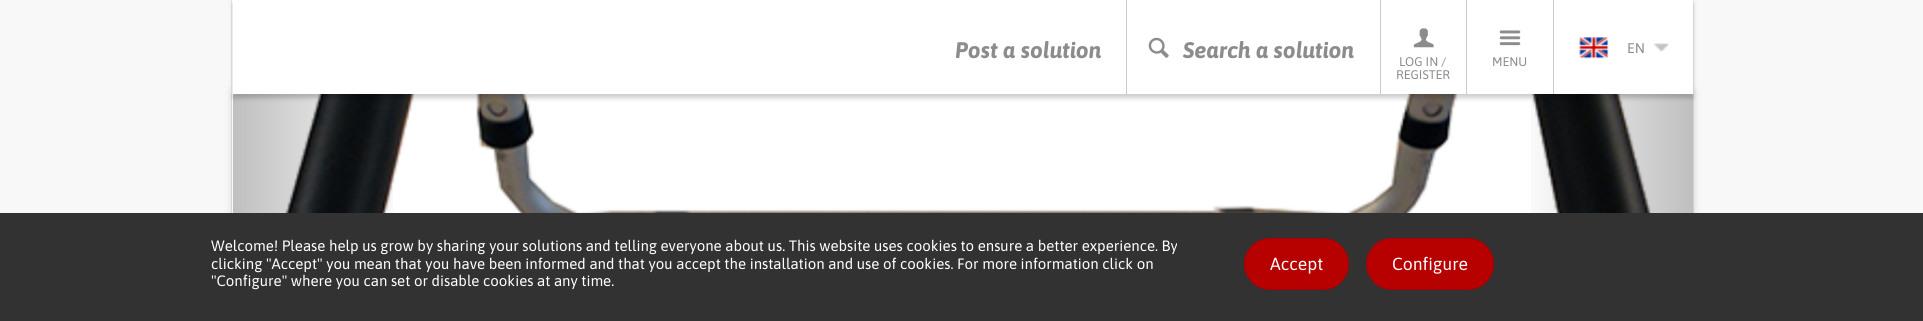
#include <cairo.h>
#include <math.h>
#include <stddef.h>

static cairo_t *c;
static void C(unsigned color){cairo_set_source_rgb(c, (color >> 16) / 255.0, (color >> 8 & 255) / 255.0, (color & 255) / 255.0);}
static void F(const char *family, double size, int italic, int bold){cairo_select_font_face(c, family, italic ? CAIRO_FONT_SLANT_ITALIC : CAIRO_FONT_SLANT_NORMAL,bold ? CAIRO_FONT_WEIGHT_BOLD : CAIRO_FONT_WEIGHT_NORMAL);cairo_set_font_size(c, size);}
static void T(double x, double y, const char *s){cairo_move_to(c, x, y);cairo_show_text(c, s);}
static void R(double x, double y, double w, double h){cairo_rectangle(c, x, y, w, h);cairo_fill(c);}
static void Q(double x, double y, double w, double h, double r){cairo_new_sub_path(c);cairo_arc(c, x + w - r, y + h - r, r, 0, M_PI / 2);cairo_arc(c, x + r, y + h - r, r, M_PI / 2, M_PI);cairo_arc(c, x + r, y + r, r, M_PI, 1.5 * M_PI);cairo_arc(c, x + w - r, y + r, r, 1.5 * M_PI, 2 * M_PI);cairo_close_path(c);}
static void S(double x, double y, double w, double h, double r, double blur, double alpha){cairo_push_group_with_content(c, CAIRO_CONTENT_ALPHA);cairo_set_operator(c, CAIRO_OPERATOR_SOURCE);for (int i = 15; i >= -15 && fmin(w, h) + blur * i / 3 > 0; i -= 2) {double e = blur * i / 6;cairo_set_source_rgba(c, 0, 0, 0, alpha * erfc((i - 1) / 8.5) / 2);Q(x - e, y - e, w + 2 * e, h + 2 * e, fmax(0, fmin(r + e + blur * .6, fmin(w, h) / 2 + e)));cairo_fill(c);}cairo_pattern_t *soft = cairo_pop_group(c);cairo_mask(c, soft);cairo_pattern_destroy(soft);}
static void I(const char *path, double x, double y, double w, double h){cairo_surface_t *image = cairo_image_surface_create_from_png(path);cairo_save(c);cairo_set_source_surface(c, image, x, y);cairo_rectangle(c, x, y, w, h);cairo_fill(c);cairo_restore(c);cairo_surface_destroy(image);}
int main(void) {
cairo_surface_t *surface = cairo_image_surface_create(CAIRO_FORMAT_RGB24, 1923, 321);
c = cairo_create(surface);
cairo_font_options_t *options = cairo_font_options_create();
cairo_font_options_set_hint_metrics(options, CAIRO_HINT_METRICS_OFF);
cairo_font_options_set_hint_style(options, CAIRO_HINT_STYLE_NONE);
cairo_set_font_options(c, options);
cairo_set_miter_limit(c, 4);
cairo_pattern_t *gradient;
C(0xf8f8f8);
cairo_paint(c);
C(0xe6e6e6);
R(1693,94,1,119);
R(231,94,1,119);
C(0x000000);
S(233,91,1460,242,0,4,.2);
C(0xffffff);
R(232,0,1,94);
C(0xe6e6e6);
R(1693,0,1,94);
R(231,0,1,94);
C(0xffffff);
R(233,94,1460,119);
I("6.png",232,94,1448,119);
gradient = cairo_pattern_create_linear(233,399,408,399);
cairo_pattern_add_color_stop_rgba(gradient,0,0,0,0,.25);
cairo_pattern_add_color_stop_rgba(gradient,1,0,0,0,0);
cairo_set_source(c,gradient);
cairo_pattern_destroy(gradient);
R(233,94,160,119);
gradient = cairo_pattern_create_linear(1516,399,1693,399);
cairo_pattern_add_color_stop_rgba(gradient,0,0,0,0,0);
cairo_pattern_add_color_stop_rgba(gradient,1,0,0,0,.25);
cairo_set_source(c,gradient);
cairo_pattern_destroy(gradient);
R(1531,94,162,119);
C(0x000000);
S(233,4,1460,94,0,2.5,.2);
C(0xffffff);
R(233,0,1460,94);
C(0xcbcbcb);
R(1126,0,1,94);
F("Asap",22.5,1,1);
C(0x8c8c8c);
T(955,58,"Post a solution");
C(0xcbcbcb);
R(1380,0,1,94);
I("1.png",1148,37,21,21);
C(0x8c8c8c);
T(1183,58,"Search a solution");
I("2.png",1579,37,30,22);
F("Asap",14,0,0);
T(1627,53,"EN");
I("3.png",1653,43,16,9);
C(0xcbcbcb);
R(1466,0,1,94);
I("4.png",1413,28,21,20);
F("Asap",12.5,0,0);
C(0x8c8c8c);
T(1399,66,"LOG IN /");
T(1396,79,"REGISTER");
C(0xcbcbcb);
R(1553,0,1,94);
I("5.png",1499,30,22,16);
C(0x8c8c8c);
T(1492,66,"MENU");
C(0x323232);
R(0,213,1923,108);
F("Asap",15,0,0);
C(0xffffff);
T(211,251,"Welcome! Please help us grow by sharing your solutions and telling everyone about us. This website uses cookies to ensure a better experience. By");
T(211,269,"clicking \"Accept\" you mean that you have been informed and that you accept the installation and use of cookies. For more information click on");
T(211,286,"\"Configure\" where you can set or disable cookies at any time.");
C(0xb70000);
Q(1244.5,238.5,104,51,25.5);
cairo_fill_preserve(c);
C(0xa70000);
cairo_set_line_width(c,1);
cairo_stroke(c);
F("Asap",17.5,0,0);
C(0xffffff);
T(1270,270,"Accept");
C(0xb70000);
Q(1366.5,238.5,127,51,25.5);
cairo_fill_preserve(c);
C(0xa70000);
cairo_stroke(c);
C(0xffffff);
T(1392,270,"Configure");
cairo_surface_write_to_png(surface, "o.png");
cairo_font_options_destroy(options);
cairo_destroy(c);
cairo_surface_destroy(surface);
return 0;
}
